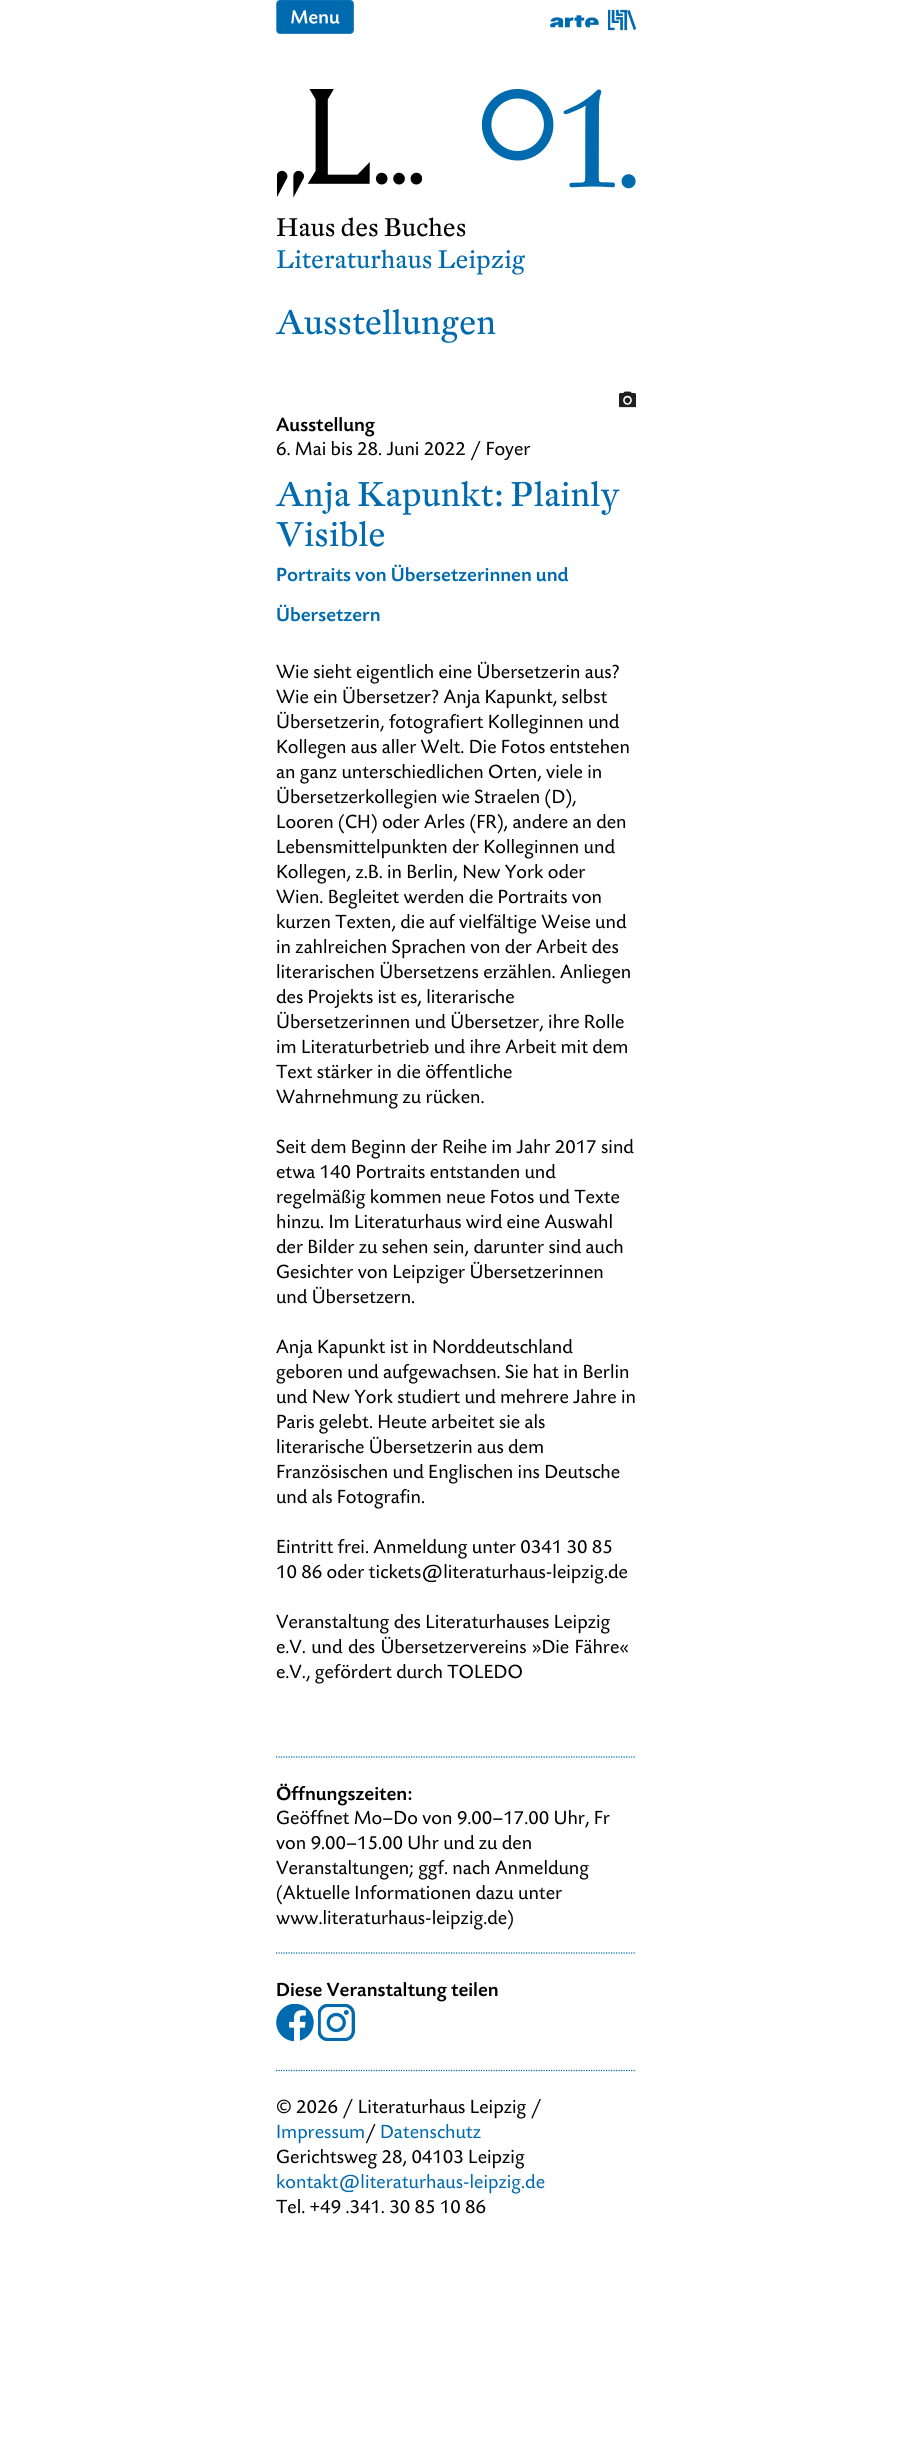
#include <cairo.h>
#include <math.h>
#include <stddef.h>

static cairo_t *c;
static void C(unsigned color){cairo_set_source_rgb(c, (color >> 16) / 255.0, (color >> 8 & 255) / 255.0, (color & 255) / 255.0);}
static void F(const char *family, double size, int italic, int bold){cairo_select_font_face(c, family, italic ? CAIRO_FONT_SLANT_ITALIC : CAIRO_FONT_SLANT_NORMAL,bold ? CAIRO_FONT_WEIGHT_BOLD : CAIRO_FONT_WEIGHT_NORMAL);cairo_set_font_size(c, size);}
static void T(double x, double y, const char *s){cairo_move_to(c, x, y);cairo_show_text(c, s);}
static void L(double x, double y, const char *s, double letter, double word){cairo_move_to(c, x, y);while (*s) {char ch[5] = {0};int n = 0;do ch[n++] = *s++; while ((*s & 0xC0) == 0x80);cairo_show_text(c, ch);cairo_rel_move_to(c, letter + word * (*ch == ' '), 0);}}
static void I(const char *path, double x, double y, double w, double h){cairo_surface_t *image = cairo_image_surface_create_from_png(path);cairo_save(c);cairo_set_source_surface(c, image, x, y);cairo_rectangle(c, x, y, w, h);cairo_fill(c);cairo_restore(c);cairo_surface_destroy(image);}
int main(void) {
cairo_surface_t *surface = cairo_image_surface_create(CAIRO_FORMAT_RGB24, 911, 2463);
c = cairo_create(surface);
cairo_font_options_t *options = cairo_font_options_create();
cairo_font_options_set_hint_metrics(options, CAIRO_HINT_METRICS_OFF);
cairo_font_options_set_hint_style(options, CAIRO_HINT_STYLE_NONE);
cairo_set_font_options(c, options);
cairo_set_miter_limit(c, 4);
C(0xffffff);
cairo_paint(c);
I("1.png",276,0,78,34);
I("2.png",550,15,49,13);
I("3.png",608,9,28,22);
I("4.png",277,89,145,109);
I("5.png",481,89,155,100);
F("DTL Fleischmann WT",25,0,0);
C(0x000000);
T(276,236,"Haus des Buches");
C(0x006aaf);
T(276,268,"Literaturhaus Leipzig");
F("DTL Fleischmann WT",33.75,0,0);
T(276,334,"Ausstellungen");
I("6.png",619,391,17,17);
F("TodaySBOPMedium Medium",20,0,0);
C(0x000000);
T(276,431,"Ausstellung");
F("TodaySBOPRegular",20,0,0);
T(276,455,"6. Mai bis 28. Juni 2022 / Foyer");
F("DTL Fleischmann WT",33.75,0,0);
C(0x006aaf);
T(276,506,"Anja Kapunkt: Plainly");
T(276,546,"Visible");
F("TodaySBOPMedium Medium",20,0,0);
T(276,581,"Portraits von Übersetzerinnen und");
T(276,621,"Übersetzern");
F("TodaySBOPRegular",20,0,0);
C(0x000000);
T(276,678,"Wie sieht eigentlich eine Übersetzerin aus?");
T(276,703,"Wie ein Übersetzer? Anja Kapunkt, selbst");
T(276,728,"Übersetzerin, fotografiert Kolleginnen und");
T(276,753,"Kollegen aus aller Welt. Die Fotos entstehen");
T(276,778,"an ganz unterschiedlichen Orten, viele in");
T(276,803,"Übersetzerkollegien wie Straelen (D),");
T(276,828,"Looren (CH) oder Arles (FR), andere an den");
T(276,853,"Lebensmittelpunkten der Kolleginnen und");
T(276,878,"Kollegen, z.B. in Berlin, New York oder");
T(276,903,"Wien. Begleitet werden die Portraits von");
T(276,928,"kurzen Texten, die auf vielfältige Weise und");
T(276,953,"in zahlreichen Sprachen von der Arbeit des");
T(276,978,"literarischen Übersetzens erzählen. Anliegen");
T(276,1003,"des Projekts ist es, literarische");
T(276,1028,"Übersetzerinnen und Übersetzer, ihre Rolle");
T(276,1053,"im Literaturbetrieb und ihre Arbeit mit dem");
T(276,1078,"Text stärker in die öffentliche");
T(276,1103,"Wahrnehmung zu rücken.");
T(276,1153,"Seit dem Beginn der Reihe im Jahr 2017 sind");
T(276,1178,"etwa 140 Portraits entstanden und");
T(276,1203,"regelmäßig kommen neue Fotos und Texte");
T(276,1228,"hinzu. Im Literaturhaus wird eine Auswahl");
T(276,1253,"der Bilder zu sehen sein, darunter sind auch");
T(276,1278,"Gesichter von Leipziger Übersetzerinnen");
T(276,1303,"und Übersetzern.");
T(276,1353,"Anja Kapunkt ist in Norddeutschland");
T(276,1378,"geboren und aufgewachsen. Sie hat in Berlin");
T(276,1403,"und New York studiert und mehrere Jahre in");
T(276,1428,"Paris gelebt. Heute arbeitet sie als");
T(276,1453,"literarische Übersetzerin aus dem");
T(276,1478,"Französischen und Englischen ins Deutsche");
T(276,1503,"und als Fotografin.");
T(276,1553,"Eintritt frei. Anmeldung unter 0341 30 85");
T(276,1578,"10 86 oder tickets@literaturhaus-leipzig.de");
T(276,1628,"Veranstaltung des Literaturhauses Leipzig");
L(276,1653,"e.V. und des Übersetzervereins »Die Fähre«",0,1);
T(276,1678,"e.V., gefördert durch TOLEDO");
cairo_new_path(c);
cairo_move_to(c,276,1757);
cairo_line_to(c,636,1757);
C(0x006aaf);
cairo_set_line_width(c,1.2);
cairo_set_dash(c,(double[]){1.25,1.25},2,0);
cairo_stroke(c);
F("TodaySBOPMedium Medium",20,0,0);
C(0x000000);
T(276,1800,"Öffnungszeiten:");
F("TodaySBOPRegular",20,0,0);
T(276,1824,"Geöffnet Mo–Do von 9.00–17.00 Uhr, Fr");
T(276,1849,"von 9.00–15.00 Uhr und zu den");
T(276,1874,"Veranstaltungen; ggf. nach Anmeldung");
T(276,1899,"(Aktuelle Informationen dazu unter");
T(276,1924,"www.literaturhaus-leipzig.de)");
cairo_new_path(c);
cairo_move_to(c,276,1953);
cairo_line_to(c,636,1953);
C(0x006aaf);
cairo_stroke(c);
F("TodaySBOPMedium Medium",20,0,0);
C(0x000000);
T(276,1996,"Diese Veranstaltung teilen");
I("7.png",276,2004,38,37);
I("8.png",318,2004,37,37);
cairo_new_path(c);
cairo_move_to(c,276,2070.5);
cairo_line_to(c,636,2070.5);
C(0x006aaf);
cairo_stroke(c);
F("TodaySBOPRegular",20,0,0);
C(0x000000);
T(276,2113,"© 2026 / Literaturhaus Leipzig /");
C(0x006aaf);
T(276,2138,"Impressum");
C(0x000000);
T(365,2138,"/");
C(0x006aaf);
T(380,2138,"Datenschutz");
C(0x000000);
T(276,2163,"Gerichtsweg 28, 04103 Leipzig");
C(0x006aaf);
T(276,2188,"kontakt@literaturhaus-leipzig.de");
C(0x000000);
T(276,2213,"Tel. +49 .341. 30 85 10 86");
cairo_surface_write_to_png(surface, "o.png");
cairo_font_options_destroy(options);
cairo_destroy(c);
cairo_surface_destroy(surface);
return 0;
}
